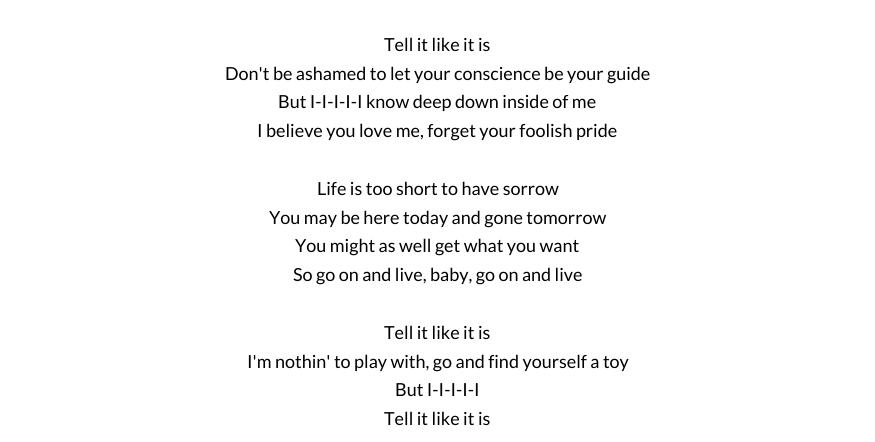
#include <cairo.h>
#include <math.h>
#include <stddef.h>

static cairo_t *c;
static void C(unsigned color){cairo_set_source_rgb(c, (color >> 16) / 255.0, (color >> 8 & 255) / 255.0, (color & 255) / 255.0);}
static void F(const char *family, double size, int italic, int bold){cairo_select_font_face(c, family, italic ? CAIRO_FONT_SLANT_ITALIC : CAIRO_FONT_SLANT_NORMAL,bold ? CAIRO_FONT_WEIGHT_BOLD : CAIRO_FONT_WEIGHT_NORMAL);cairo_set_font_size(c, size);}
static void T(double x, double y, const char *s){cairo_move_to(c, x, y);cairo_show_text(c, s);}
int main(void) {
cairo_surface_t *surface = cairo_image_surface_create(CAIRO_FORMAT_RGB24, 875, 442);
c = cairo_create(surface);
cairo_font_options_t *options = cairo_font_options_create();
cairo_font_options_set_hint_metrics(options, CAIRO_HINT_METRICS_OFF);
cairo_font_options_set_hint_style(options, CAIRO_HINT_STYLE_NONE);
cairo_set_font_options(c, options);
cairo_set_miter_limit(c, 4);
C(0xffffff);
cairo_paint(c);
F("Lato",18,0,0);
C(0x000000);
T(384,51,"Tell it like it is");
T(225,80,"Don't be ashamed to let your conscience be your guide");
T(278,108,"But I-I-I-I-I know deep down inside of me");
T(257,137,"I believe you love me, forget your foolish pride");
T(317,195,"Life is too short to have sorrow");
T(269,224,"You may be here today and gone tomorrow");
T(295,252,"You might as well get what you want");
T(293,281,"So go on and live, baby, go on and live");
T(384,339,"Tell it like it is");
T(247,368,"I'm nothin' to play with, go and find yourself a toy");
T(395,396,"But I-I-I-I-I");
T(384,425,"Tell it like it is");
cairo_surface_write_to_png(surface, "o.png");
cairo_font_options_destroy(options);
cairo_destroy(c);
cairo_surface_destroy(surface);
return 0;
}
